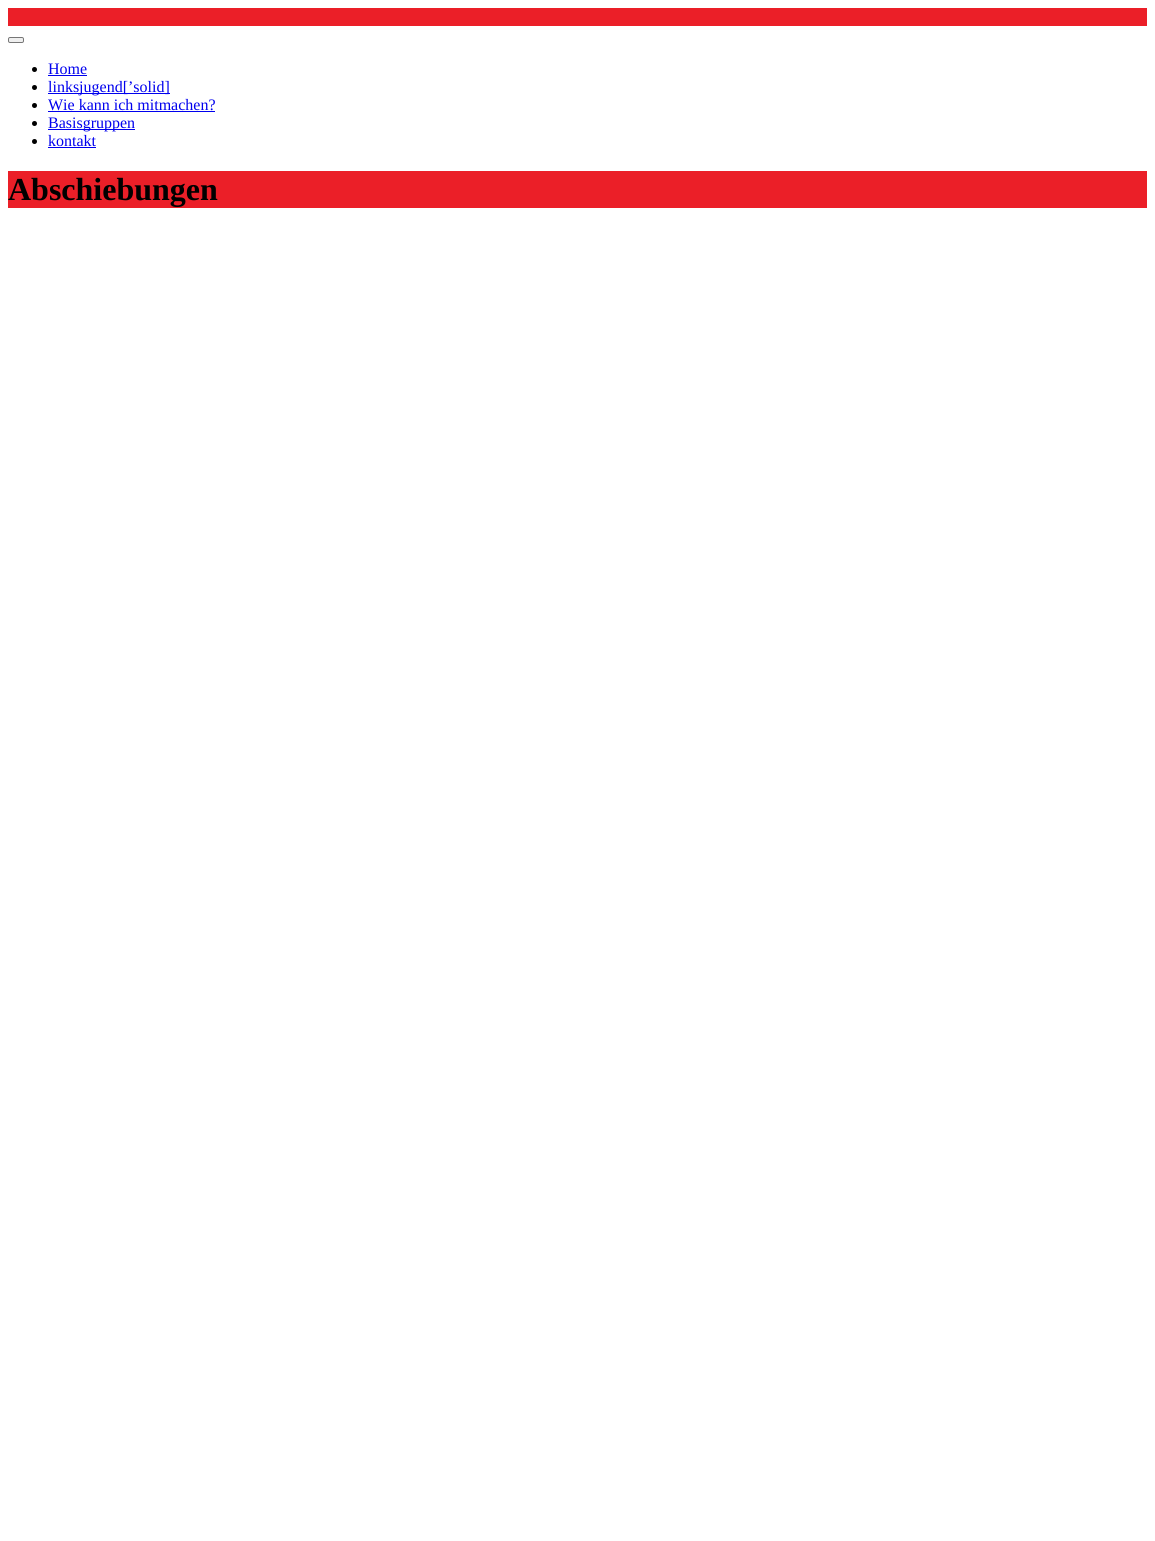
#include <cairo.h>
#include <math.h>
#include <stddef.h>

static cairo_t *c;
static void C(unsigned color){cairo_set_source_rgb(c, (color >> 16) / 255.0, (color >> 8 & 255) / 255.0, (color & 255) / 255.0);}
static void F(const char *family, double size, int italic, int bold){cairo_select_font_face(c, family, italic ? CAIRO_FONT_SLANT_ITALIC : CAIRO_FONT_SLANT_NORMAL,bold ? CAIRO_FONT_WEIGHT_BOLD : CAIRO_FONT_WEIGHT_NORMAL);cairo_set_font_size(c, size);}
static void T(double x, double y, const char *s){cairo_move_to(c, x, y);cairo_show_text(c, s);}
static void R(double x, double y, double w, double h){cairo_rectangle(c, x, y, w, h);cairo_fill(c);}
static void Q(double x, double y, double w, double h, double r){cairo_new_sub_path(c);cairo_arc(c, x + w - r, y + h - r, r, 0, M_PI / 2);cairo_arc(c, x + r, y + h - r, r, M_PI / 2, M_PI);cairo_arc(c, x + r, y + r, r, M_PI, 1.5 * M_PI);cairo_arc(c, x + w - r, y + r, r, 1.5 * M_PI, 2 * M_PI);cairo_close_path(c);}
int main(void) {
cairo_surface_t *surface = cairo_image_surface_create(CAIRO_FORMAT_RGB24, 1155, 1541);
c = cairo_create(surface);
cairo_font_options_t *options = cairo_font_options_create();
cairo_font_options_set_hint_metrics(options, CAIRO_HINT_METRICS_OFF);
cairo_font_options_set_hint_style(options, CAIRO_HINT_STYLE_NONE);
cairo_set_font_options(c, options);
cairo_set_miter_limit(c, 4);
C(0xffffff);
cairo_paint(c);
C(0xeb1f28);
R(8,8,1139,18);
C(0xefefef);
Q(8.5,37.5,15,5,1.5);
cairo_fill_preserve(c);
C(0x767676);
cairo_set_line_width(c,1);
cairo_stroke(c);
C(0x000000);
cairo_arc(c,34.5,69.5,2.5,0,2 * M_PI);
cairo_fill(c);
F("Liberation Serif",16,0,0);
C(0x0000ee);
T(48,74,"Home");
R(48,75,39,1);
C(0x000000);
cairo_new_path(c);
cairo_arc(c,34.5,87.5,2.5,0,2 * M_PI);
cairo_fill(c);
C(0x0000ee);
R(48,93,122,1);
T(48,92,"linksjugend[’solid]");
C(0x000000);
cairo_new_path(c);
cairo_arc(c,34.5,105.5,2.5,0,2 * M_PI);
cairo_fill(c);
C(0x0000ee);
T(48,110,"Wie kann ich mitmachen?");
R(48,111,167,1);
C(0x000000);
cairo_new_path(c);
cairo_arc(c,34.5,123.5,2.5,0,2 * M_PI);
cairo_fill(c);
C(0x0000ee);
R(48,129,87,1);
T(48,128,"Basisgruppen");
C(0x000000);
cairo_new_path(c);
cairo_arc(c,34.5,141.5,2.5,0,2 * M_PI);
cairo_fill(c);
C(0x0000ee);
T(48,146,"kontakt");
R(48,147,48,1);
C(0xeb1f28);
R(8,171,1139,37);
F("Liberation Serif",32,0,1);
C(0x000000);
T(8,200,"Abschiebungen");
cairo_surface_write_to_png(surface, "o.png");
cairo_font_options_destroy(options);
cairo_destroy(c);
cairo_surface_destroy(surface);
return 0;
}
